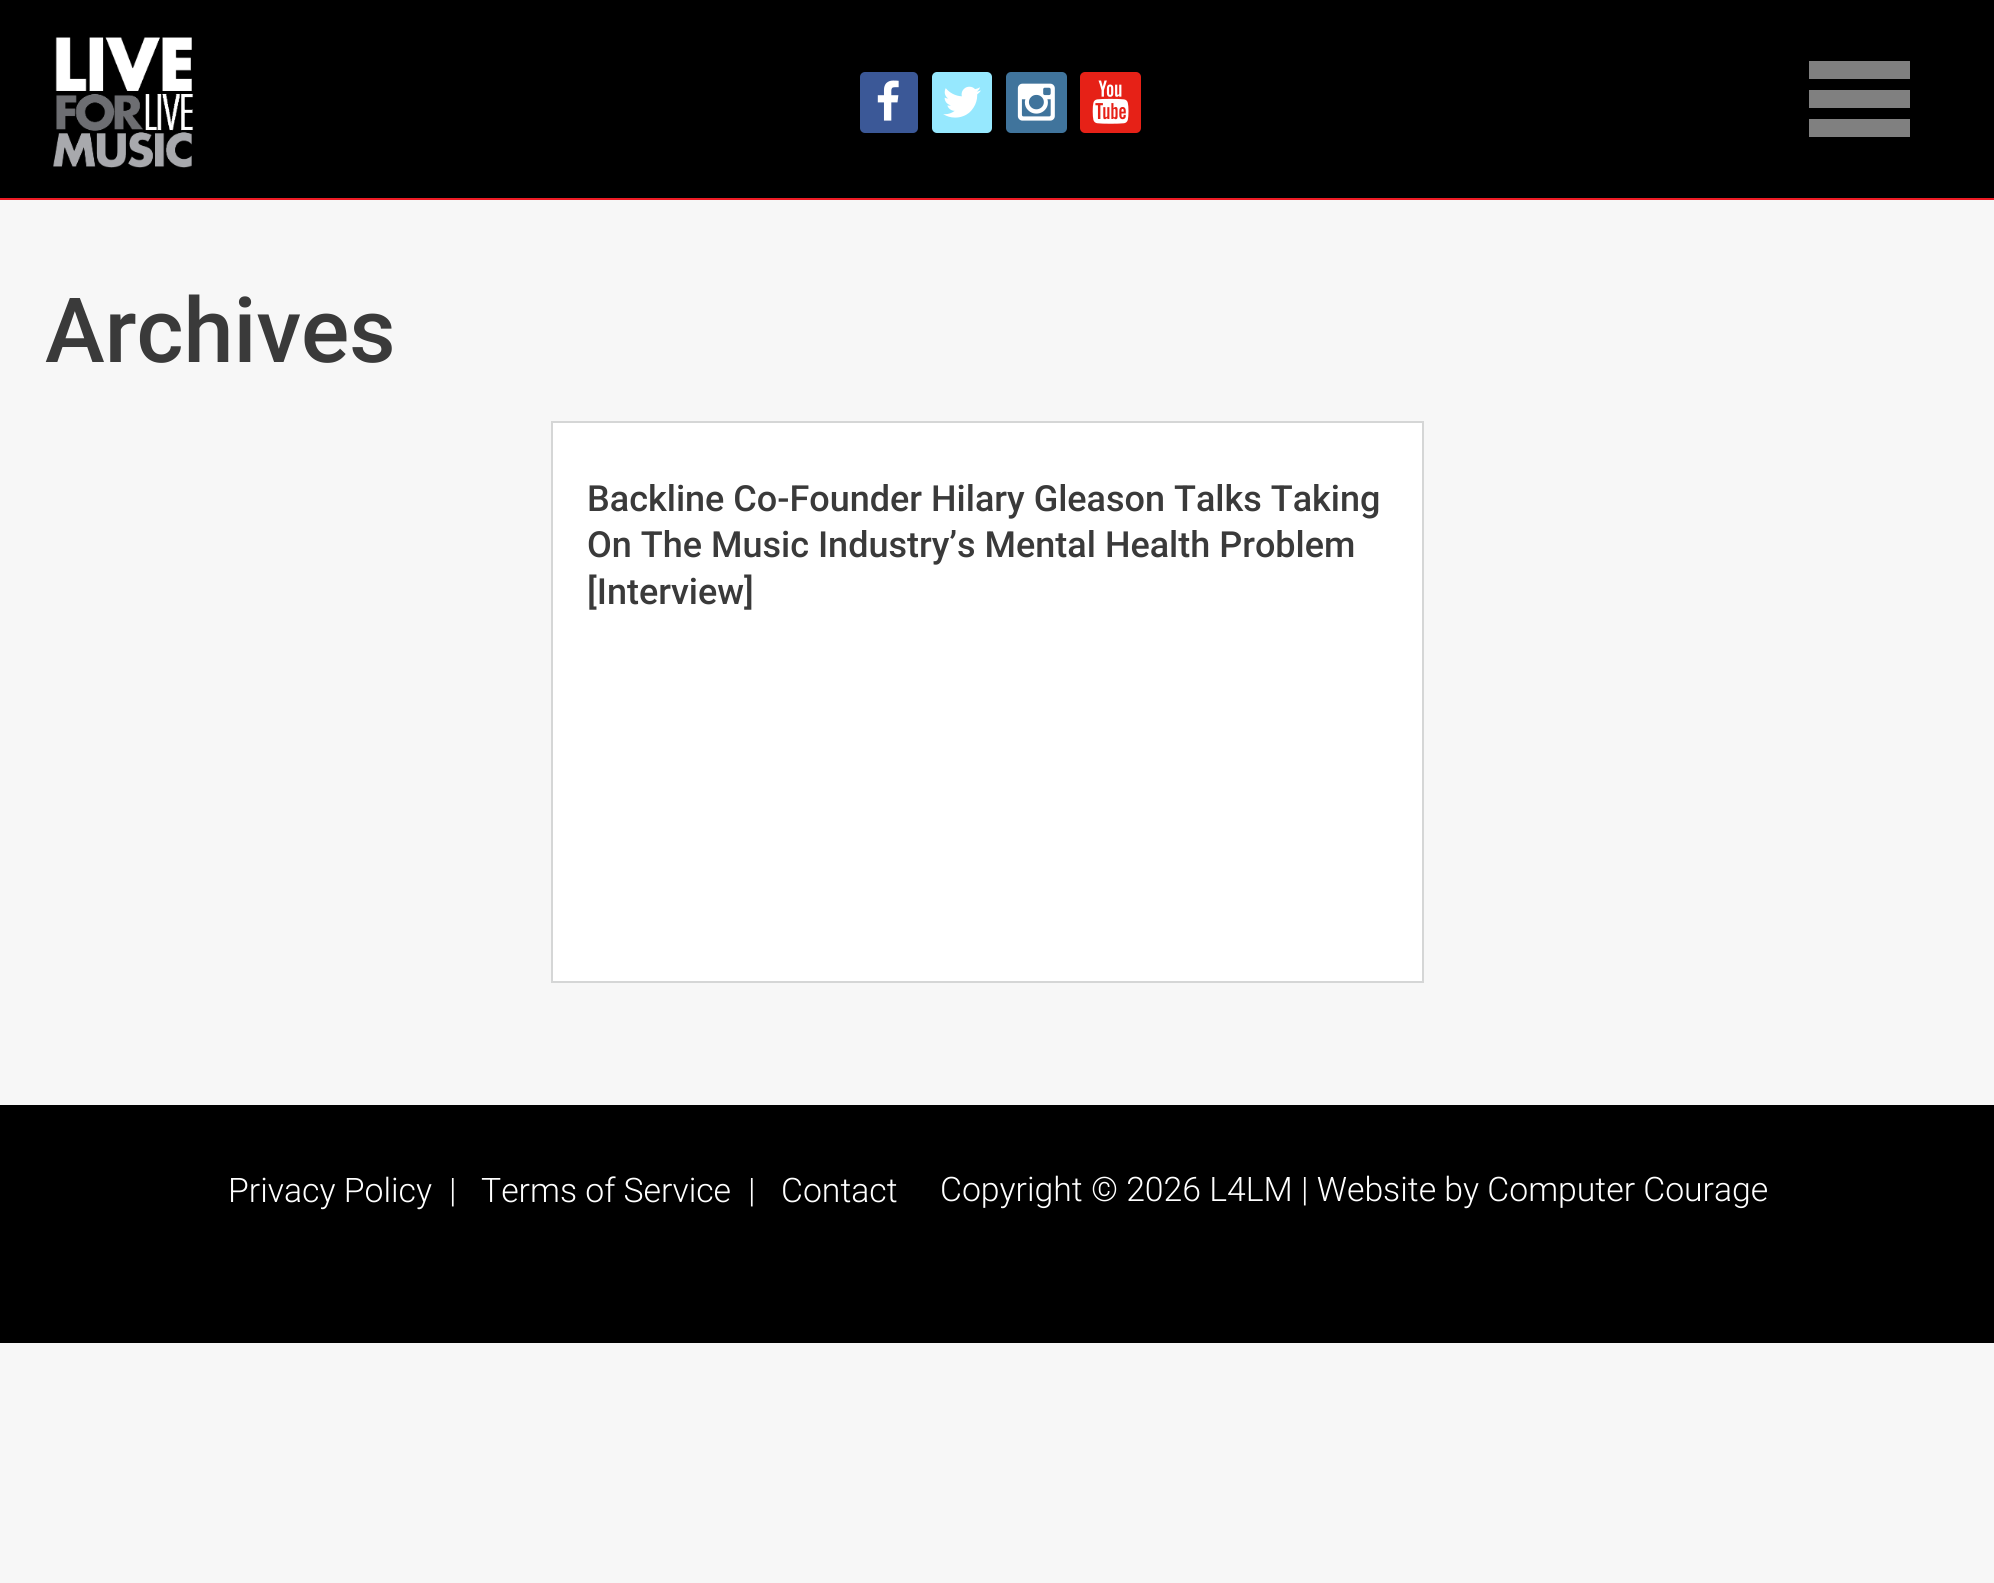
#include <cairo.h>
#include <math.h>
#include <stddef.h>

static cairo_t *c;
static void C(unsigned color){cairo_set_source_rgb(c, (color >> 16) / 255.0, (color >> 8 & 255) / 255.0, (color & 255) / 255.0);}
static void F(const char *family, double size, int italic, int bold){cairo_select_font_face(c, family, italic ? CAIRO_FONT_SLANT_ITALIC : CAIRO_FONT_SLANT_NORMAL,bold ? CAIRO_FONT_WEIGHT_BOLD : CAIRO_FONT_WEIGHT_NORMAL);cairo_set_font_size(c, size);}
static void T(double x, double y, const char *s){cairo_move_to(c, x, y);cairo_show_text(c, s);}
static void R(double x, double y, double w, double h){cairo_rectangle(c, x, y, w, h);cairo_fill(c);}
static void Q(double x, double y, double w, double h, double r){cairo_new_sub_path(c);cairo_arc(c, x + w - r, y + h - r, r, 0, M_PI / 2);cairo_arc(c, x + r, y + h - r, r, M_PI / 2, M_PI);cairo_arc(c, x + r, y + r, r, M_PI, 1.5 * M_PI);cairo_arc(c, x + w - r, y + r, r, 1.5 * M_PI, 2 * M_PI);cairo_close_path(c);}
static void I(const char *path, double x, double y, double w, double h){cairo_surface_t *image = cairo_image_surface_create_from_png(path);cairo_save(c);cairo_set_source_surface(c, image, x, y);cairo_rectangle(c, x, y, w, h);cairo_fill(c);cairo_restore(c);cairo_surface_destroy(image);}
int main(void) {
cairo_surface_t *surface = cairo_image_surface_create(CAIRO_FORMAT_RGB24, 1994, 1583);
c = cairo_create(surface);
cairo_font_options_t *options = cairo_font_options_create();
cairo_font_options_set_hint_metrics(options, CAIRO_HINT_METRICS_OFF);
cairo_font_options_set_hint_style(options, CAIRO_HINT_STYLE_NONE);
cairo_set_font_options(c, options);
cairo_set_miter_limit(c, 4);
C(0xf7f7f7);
cairo_paint(c);
C(0x000000);
R(0,0,1994,198);
C(0xee1c25);
R(0,198,1994,2);
I("1.png",53,37,141,131);
C(0x3b5897);
Q(860,72,58,61,5);
cairo_fill(c);
I("2.png",877,80,22,41);
C(0x96e8fe);
Q(932,72,60,61,5);
cairo_fill(c);
I("3.png",943,86,38,32);
C(0x40749c);
Q(1006,72,61,61,5);
cairo_fill(c);
I("4.png",1017,83,38,38);
C(0xe62117);
Q(1080,72,61,61,5);
cairo_fill(c);
I("5.png",1092,80,37,44);
C(0x808080);
R(1809,61,101,18);
R(1809,90,101,18);
R(1809,119,101,18);
F("Roboto Medium",90,0,0);
C(0x3a3a3a);
T(45,362,"Archives");
C(0xffffff);
cairo_rectangle(c,552,422,871,560);
cairo_fill_preserve(c);
C(0xd5d6d6);
cairo_stroke(c);
F("Roboto Medium",36,0,0);
C(0x3a3a3a);
T(587,511,"Backline Co-Founder Hilary Gleason Talks Taking");
T(587,557,"On The Music Industry’s Mental Health Problem");
T(587,604,"[Interview]");
C(0x000000);
R(0,1105,1994,238);
F("Roboto Light",33.75,0,0);
C(0xffffff);
T(228,1202,"Privacy Policy");
T(449,1202,"|");
T(481,1202,"Terms of Service");
T(748,1202,"|");
T(781,1202,"Contact");
T(940,1201,"Copyright © 2026 L4LM | Website by Computer Courage");
cairo_surface_write_to_png(surface, "o.png");
cairo_font_options_destroy(options);
cairo_destroy(c);
cairo_surface_destroy(surface);
return 0;
}
